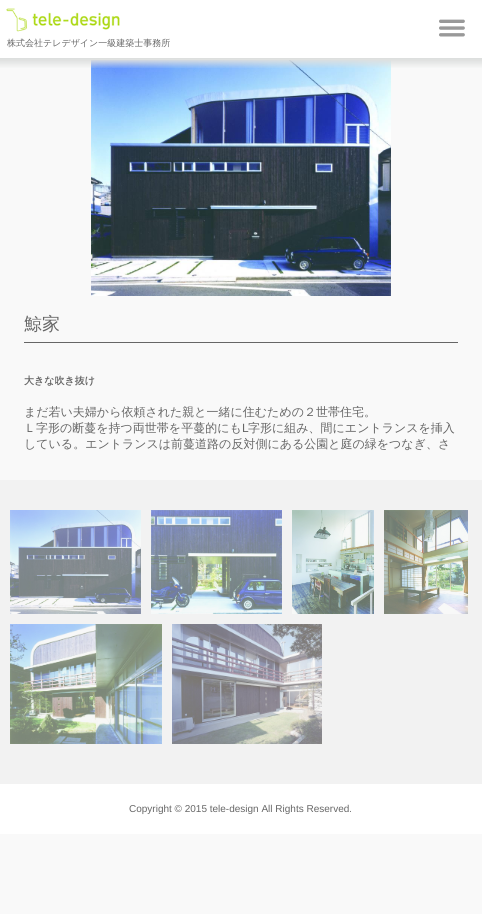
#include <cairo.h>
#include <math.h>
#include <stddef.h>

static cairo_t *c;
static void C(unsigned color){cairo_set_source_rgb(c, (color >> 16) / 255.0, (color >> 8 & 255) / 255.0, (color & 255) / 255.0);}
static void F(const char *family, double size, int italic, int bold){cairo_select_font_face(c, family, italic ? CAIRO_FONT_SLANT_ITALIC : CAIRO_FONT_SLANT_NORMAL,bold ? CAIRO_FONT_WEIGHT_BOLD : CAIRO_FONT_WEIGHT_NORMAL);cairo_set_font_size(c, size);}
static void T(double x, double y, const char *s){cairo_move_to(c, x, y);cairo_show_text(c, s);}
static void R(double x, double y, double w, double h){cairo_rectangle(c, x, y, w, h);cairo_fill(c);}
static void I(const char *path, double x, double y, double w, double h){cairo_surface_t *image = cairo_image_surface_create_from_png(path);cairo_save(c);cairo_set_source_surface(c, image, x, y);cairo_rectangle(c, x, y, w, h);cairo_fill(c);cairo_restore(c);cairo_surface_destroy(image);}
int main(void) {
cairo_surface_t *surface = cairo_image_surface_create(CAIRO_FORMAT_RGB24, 482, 914);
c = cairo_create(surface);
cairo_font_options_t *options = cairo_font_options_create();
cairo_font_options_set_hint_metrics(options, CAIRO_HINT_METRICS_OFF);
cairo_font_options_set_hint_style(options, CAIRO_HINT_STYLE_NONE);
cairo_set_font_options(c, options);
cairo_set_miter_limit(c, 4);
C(0xf9f9f9);
cairo_paint(c);
C(0xffffff);
R(0,0,482,60);
I("1.png",6,8,114,24);
I("2.png",439,19,26,18);
F("WenQuanYi Zen Hei Medium",9,0,0);
C(0x666666);
T(7,46,"株式会社テレデザイン一級建築士事務所");
I("4.png",91,60,300,236);
I("3.png",0,58,482,10);
R(24,342,434,1);
F("WenQuanYi Zen Hei Medium",18,0,0);
T(24,330,"鯨家");
F("WenQuanYi Zen Hei",10,0,1);
T(24,384,"大きな吹き抜け");
F("WenQuanYi Zen Hei Medium",12,0,0);
T(24,416,"まだ若い夫婦から依頼された親と一緒に住むための２世帯住宅。");
T(24,432,"Ｌ字形の断蔓を持つ両世帯を平蔓的にも");
F("Liberation Sans",12,0,0);
T(242,432,"L");
F("WenQuanYi Zen Hei Medium",12,0,0);
T(248,432,"字形に組み、間にエントランスを挿入");
T(24,448,"している。エントランスは前蔓道路の反対側にある公園と庭の緑をつなぎ、さ");
C(0xf2f2f2);
R(0,480,482,304);
I("5.png",10,510,131,104);
I("6.png",151,510,131,104);
I("7.png",292,510,82,104);
I("8.png",384,510,84,104);
I("9.png",10,624,152,120);
I("10.png",172,624,150,120);
C(0xffffff);
R(0,784,482,50);
F("Liberation Sans",10,0,0);
C(0x666666);
T(129,812,"Copyright © 2015 tele-design All Rights Reserved.");
cairo_surface_write_to_png(surface, "o.png");
cairo_font_options_destroy(options);
cairo_destroy(c);
cairo_surface_destroy(surface);
return 0;
}
